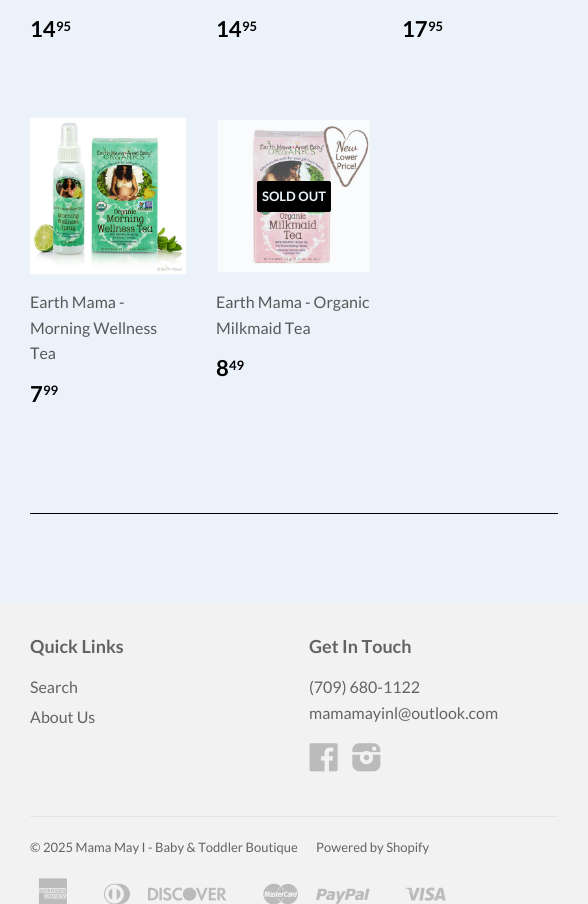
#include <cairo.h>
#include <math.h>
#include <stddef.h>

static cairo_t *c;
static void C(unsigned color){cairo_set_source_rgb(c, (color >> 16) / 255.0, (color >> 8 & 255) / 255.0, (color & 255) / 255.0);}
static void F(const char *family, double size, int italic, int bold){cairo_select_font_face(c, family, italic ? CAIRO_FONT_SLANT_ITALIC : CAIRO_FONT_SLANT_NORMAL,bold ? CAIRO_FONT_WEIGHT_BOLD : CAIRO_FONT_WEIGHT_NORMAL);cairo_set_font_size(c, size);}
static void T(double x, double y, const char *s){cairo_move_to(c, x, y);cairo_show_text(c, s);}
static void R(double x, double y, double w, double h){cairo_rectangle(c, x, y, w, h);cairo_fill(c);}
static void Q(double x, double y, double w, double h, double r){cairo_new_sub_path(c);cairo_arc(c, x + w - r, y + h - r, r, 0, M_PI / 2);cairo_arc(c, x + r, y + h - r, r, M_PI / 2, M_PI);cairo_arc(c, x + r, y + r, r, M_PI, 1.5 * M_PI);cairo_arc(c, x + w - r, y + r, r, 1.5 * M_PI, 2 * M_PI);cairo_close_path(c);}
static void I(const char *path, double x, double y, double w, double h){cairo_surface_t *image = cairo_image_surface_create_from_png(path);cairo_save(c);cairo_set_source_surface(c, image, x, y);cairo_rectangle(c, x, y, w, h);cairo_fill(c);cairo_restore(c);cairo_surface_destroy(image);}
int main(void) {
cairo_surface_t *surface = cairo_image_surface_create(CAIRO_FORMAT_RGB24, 588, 904);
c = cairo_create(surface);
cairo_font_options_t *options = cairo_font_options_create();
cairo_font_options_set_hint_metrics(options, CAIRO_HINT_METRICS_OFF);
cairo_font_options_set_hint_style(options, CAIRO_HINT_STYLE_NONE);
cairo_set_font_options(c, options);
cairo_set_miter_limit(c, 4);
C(0xebf2f9);
cairo_paint(c);
F("Lato",22,0,1);
C(0x000000);
T(30,37,"14");
F("Lato",13,0,1);
T(56,31,"95");
F("Lato",22,0,1);
T(216,37,"14");
F("Lato",13,0,1);
T(242,31,"95");
F("Lato",22,0,1);
T(402,37,"17");
F("Lato",13,0,1);
T(428,31,"95");
I("1.png",30,118,156,156);
F("Lato",16,0,0);
C(0x585858);
T(30,308,"Earth Mama -");
T(30,334,"Morning Wellness");
T(30,359,"Tea");
F("Lato",22,0,1);
C(0x000000);
T(30,402,"7");
F("Lato",13,0,1);
T(43,395,"99");
I("2.png",217,120,153,152);
Q(257,181,74,31,2);
cairo_fill(c);
C(0xebf2f9);
T(262,201,"SOLD OUT");
F("Lato",16,0,0);
C(0x585858);
T(216,308,"Earth Mama - Organic");
T(216,334,"Milkmaid Tea");
F("Lato",22,0,1);
C(0x000000);
T(216,376,"8");
F("Lato",13,0,1);
T(229,370,"49");
R(30,513,528,1);
C(0xf2f2f2);
R(0,604,588,300);
F("Lato",18,0,1);
C(0x636363);
T(30,653,"Quick Links");
F("Lato",16,0,0);
T(30,693,"Search");
T(30,723,"About Us");
F("Lato",18,0,1);
T(309,653,"Get In Touch");
F("Lato",16,0,0);
T(309,693,"(709) 680-1122");
T(309,719,"mamamayinl@outlook.com");
I("3.png",309,743,29,29);
I("4.png",352,743,29,29);
C(0xe5e5e5);
R(30,816,528,1);
F("Lato",13,0,0);
C(0x636363);
T(30,852,"© 2025 Mama May I - Baby & Toddler Boutique");
T(316,852,"Powered by Shopify");
I("5.png",38,878,29,26);
I("6.png",104,883,26,21);
I("7.png",148,887,79,14);
I("8.png",263,883,35,21);
I("9.png",316,888,54,16);
I("10.png",405,887,41,14);
cairo_surface_write_to_png(surface, "o.png");
cairo_font_options_destroy(options);
cairo_destroy(c);
cairo_surface_destroy(surface);
return 0;
}
